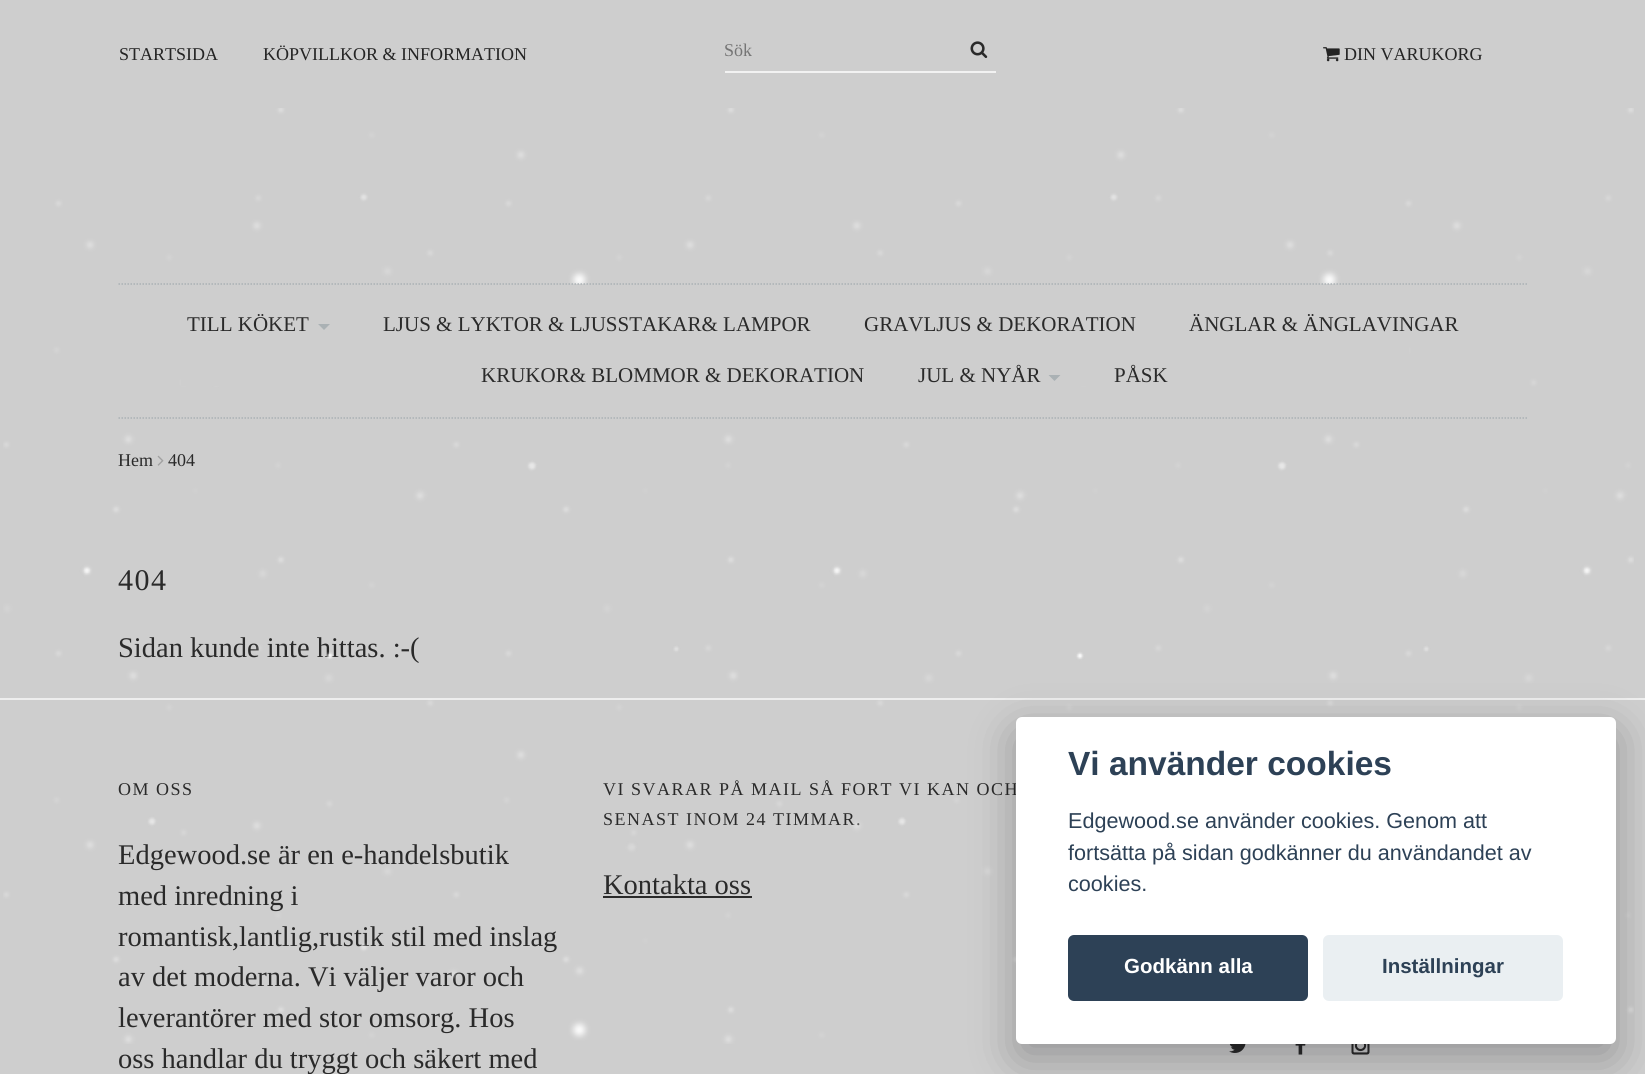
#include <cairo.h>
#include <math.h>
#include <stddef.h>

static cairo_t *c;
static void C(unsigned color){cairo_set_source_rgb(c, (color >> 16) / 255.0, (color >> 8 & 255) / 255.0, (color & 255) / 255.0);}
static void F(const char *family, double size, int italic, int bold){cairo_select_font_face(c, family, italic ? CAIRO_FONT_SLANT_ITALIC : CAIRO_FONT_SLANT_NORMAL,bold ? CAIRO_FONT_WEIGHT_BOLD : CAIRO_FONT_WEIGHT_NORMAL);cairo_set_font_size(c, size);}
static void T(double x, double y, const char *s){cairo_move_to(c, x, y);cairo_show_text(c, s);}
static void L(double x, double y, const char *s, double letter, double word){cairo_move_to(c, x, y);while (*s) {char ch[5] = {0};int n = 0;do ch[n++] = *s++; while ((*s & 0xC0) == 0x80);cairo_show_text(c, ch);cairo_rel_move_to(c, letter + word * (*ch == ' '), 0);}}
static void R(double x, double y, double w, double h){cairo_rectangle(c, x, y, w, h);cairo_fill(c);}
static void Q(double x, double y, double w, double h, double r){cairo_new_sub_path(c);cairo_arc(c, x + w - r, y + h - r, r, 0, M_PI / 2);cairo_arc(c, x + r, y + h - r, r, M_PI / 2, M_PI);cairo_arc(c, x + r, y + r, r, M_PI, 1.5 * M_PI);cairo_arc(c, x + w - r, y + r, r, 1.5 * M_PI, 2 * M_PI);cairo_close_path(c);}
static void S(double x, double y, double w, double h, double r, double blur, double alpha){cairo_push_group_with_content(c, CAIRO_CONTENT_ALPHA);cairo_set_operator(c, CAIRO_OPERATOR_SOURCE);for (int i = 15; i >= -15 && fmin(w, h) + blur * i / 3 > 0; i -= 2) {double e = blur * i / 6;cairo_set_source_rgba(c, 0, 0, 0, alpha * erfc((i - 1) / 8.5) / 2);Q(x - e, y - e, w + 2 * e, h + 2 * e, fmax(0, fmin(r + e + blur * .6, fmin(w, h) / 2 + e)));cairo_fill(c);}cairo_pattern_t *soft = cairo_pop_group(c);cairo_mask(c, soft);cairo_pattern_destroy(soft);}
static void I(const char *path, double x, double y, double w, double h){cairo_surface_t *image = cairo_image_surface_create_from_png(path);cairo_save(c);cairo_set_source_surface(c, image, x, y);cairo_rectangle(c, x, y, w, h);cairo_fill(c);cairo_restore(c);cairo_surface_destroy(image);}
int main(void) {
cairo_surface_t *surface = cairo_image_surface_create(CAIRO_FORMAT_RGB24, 1645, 1074);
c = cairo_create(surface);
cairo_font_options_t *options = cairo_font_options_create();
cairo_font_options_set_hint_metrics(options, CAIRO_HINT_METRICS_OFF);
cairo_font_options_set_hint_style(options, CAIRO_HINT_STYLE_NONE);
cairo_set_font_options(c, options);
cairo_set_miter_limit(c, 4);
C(0xcecece);
cairo_paint(c);
F("Liberation Serif",18,0,0);
C(0x242424);
T(119,60,"STARTSIDA");
T(263,60,"KÖPVILLKOR & INFORMATION");
C(0xf2f2f2);
R(725,71,271,2);
C(0x757575);
T(724,56,"Sök");
I("1.png",970,41,18,17);
I("2.png",1323,47,17,15);
C(0x242424);
T(1344,60,"DIN VARUKORG");
C(0x2a2a2a);
T(118,466,"Hem");
I("4.png",157,455,7,11);
T(168,466,"404");
F("Liberation Serif",30,0,0);
L(118,590,"404",1.5,0);
F("Liberation Serif",28.5,0,0);
T(118,657,"Sidan kunde inte hittas. :-(");
C(0xeeeeee);
R(0,698,1645,2);
F("Liberation Serif",18,0,0);
C(0x2a2a2a);
L(118,795,"OM OSS",1.5,0);
F("Liberation Serif",28.5,0,0);
T(118,864,"Edgewood.se är en e-handelsbutik");
T(118,905,"med inredning i");
T(118,946,"romantisk,lantlig,rustik stil med inslag");
T(118,986,"av det moderna. Vi väljer varor och");
T(118,1027,"leverantörer med stor omsorg. Hos");
F("Liberation Serif",18,0,0);
L(603,795,"VI SVARAR PÅ MAIL SÅ FORT VI KAN OCH",1.5,0);
L(603,825,"SENAST INOM 24 TIMMAR.",1.5,0);
F("Liberation Serif",28.5,0,0);
T(603,894,"Kontakta oss");
R(603,896,149,2);
I("3.png",3,108,1631,936);
C(0xcecece);
R(181,284,1228,102);
cairo_new_path(c);
cairo_move_to(c,118.5,284);
cairo_line_to(c,1528.5,284);
C(0xaab1b4);
cairo_set_line_width(c,1.5);
cairo_set_dash(c,(double[]){1.5,1.5},2,0);
cairo_stroke(c);
cairo_new_path(c);
cairo_move_to(c,118.5,418);
cairo_line_to(c,1528.5,418);
cairo_stroke(c);
F("Liberation Serif",21,0,0);
C(0x2a2a2a);
T(187,331,"TILL KÖKET");
C(0xaab1b4);
cairo_new_path(c);
cairo_move_to(c,318,324);
cairo_line_to(c,330,324);
cairo_line_to(c,324,330);
cairo_close_path(c);
cairo_fill(c);
C(0x2a2a2a);
T(383,331,"LJUS & LYKTOR & LJUSSTAKAR& LAMPOR");
T(864,331,"GRAVLJUS & DEKORATION");
T(1189,331,"ÄNGLAR & ÄNGLAVINGAR");
T(481,382,"KRUKOR& BLOMMOR & DEKORATION");
T(918,382,"JUL & NYÅR");
C(0xaab1b4);
cairo_new_path(c);
cairo_move_to(c,1048.5,375);
cairo_line_to(c,1060.5,375);
cairo_line_to(c,1054.5,381);
cairo_close_path(c);
cairo_fill(c);
C(0x2a2a2a);
T(1114,382,"PÅSK");
F("Liberation Serif",28.5,0,0);
T(118,1068,"oss handlar du tryggt och säkert med");
I("5.png",1229,1044,17,9);
I("6.png",1295,1044,11,11);
I("7.png",1351,1044,19,11);
C(0x020203);
S(1016,732,600,327,6,22.5,.28);
C(0xffffff);
Q(1016,717,600,327,6);
cairo_fill(c);
F("Liberation Sans",33.5,0,1);
C(0x2d4156);
T(1068,775,"Vi använder cookies");
F("Liberation Sans",21.6,0,0);
T(1068,828,"Edgewood.se använder cookies. Genom att");
T(1068,860,"fortsätta på sidan godkänner du användandet av");
T(1068,891,"cookies.");
Q(1068,935,240,66,6);
cairo_fill(c);
F("Liberation Sans",20.5,0,1);
C(0xffffff);
T(1124,973,"Godkänn alla");
C(0xeaeff2);
Q(1323,935,240,66,6);
cairo_fill(c);
C(0x2d4156);
T(1382,973,"Inställningar");
cairo_surface_write_to_png(surface, "o.png");
cairo_font_options_destroy(options);
cairo_destroy(c);
cairo_surface_destroy(surface);
return 0;
}
